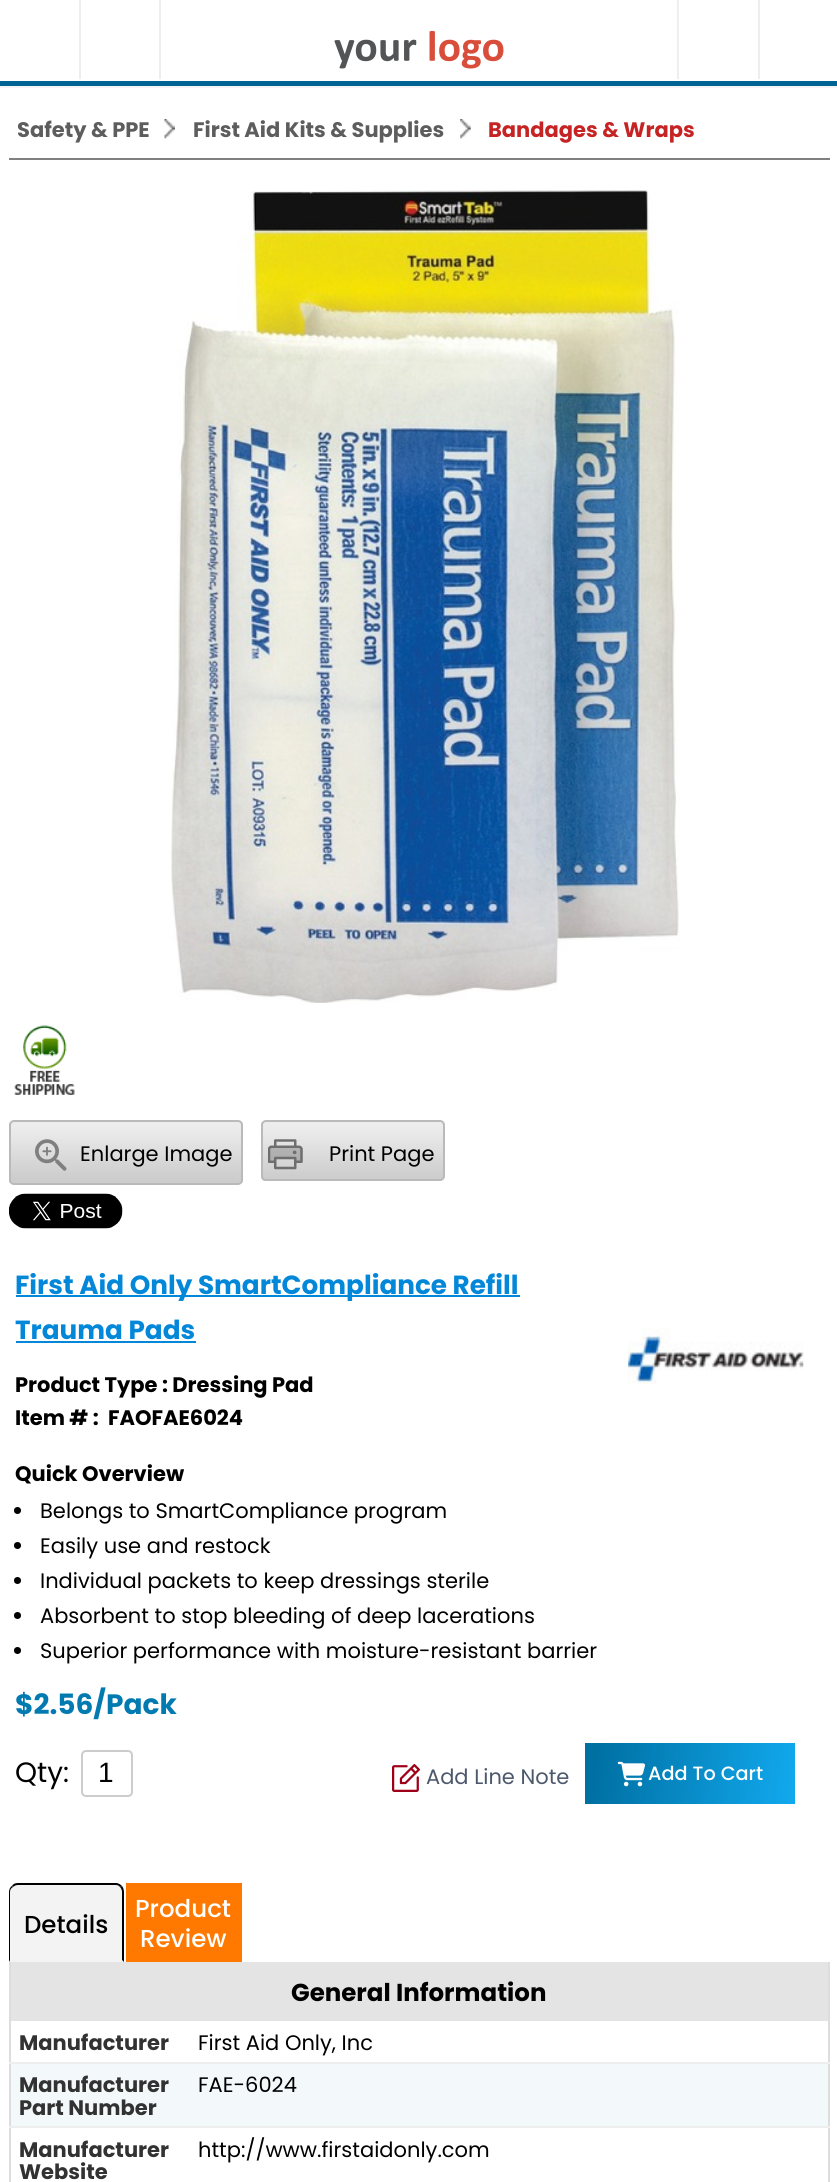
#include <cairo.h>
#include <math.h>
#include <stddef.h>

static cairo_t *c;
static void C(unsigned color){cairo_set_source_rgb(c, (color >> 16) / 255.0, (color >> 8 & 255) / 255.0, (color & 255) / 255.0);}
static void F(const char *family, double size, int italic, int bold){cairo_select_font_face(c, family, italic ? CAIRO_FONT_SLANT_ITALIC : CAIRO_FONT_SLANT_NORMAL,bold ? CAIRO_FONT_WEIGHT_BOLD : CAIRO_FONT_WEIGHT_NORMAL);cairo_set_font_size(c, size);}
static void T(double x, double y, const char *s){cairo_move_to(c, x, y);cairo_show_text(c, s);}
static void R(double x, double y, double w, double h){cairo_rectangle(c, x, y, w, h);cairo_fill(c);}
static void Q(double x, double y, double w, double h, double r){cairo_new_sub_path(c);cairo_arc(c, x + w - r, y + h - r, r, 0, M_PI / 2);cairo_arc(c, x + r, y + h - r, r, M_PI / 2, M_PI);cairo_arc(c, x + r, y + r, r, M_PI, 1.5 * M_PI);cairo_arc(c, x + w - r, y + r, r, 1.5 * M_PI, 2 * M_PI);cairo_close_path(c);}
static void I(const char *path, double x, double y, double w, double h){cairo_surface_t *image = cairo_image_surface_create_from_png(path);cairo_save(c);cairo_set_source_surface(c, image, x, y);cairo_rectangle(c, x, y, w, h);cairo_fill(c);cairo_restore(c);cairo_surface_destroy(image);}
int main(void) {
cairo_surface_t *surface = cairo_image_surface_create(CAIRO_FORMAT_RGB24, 837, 2182);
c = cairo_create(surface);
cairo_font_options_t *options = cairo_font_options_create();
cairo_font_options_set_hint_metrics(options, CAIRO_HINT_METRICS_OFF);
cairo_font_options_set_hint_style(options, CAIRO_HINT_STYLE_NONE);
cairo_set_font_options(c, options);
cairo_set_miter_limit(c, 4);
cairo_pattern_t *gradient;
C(0xf5f5f5);
cairo_paint(c);
C(0xffffff);
R(0,0,837,81);
C(0x006495);
R(0,81,837,5);
C(0xeeeeee);
R(79,0,2,79);
R(159,0,2,79);
I("1.png",334,30,170,39);
R(677,0,2,79);
R(758,0,2,79);
C(0xffffff);
R(0,88,837,2094);
C(0x808080);
R(9,158,821,2);
I("2.png",164,119,11,20);
F("Poppins",21,0,1);
C(0x5d5d5d);
T(17,137,"Safety & PPE");
I("3.png",460,119,11,20);
T(193,137,"First Aid Kits & Supplies");
C(0xc62424);
T(488,137,"Bandages & Wraps");
I("4.png",171,190,508,813);
I("5.png",14,1025,61,70);
I("6.png",9,1121,234,62);
Q(10,1121,232,63,4);
C(0xbababa);
cairo_stroke(c);
I("7.png",35,1139,32,32);
F("Poppins",21,0,0);
C(0x000000);
T(80,1161,"Enlarge Image");
I("8.png",261,1121,184,60);
Q(262,1121,182,59,4);
C(0xbababa);
cairo_stroke(c);
I("9.png",268,1139,35,31);
C(0x000000);
T(329,1161,"Print Page");
I("10.png",9,1193,114,36);
C(0x0387d9);
R(16,1295,504,2);
F("Poppins",26.25,0,1);
T(15,1294,"First Aid Only SmartCompliance Refill");
T(15,1339,"Trauma Pads");
R(16,1341,180,2);
I("11.png",628,1328,176,57);
F("Poppins",21,0,1);
C(0x000000);
T(15,1392,"Product Type : Dressing Pad");
T(15,1425,"Item # :");
T(108,1425,"FAOFAE6024");
T(15,1481,"Quick Overview");
cairo_new_path(c);
cairo_arc(c,17.5,1510.5,3.5,0,2 * M_PI);
cairo_fill(c);
F("Poppins",21,0,0);
T(40,1518,"Belongs to SmartCompliance program");
cairo_new_path(c);
cairo_arc(c,17.5,1545.5,3.5,0,2 * M_PI);
cairo_fill(c);
T(40,1553,"Easily use and restock");
cairo_new_path(c);
cairo_arc(c,17.5,1580.5,3.5,0,2 * M_PI);
cairo_fill(c);
T(40,1588,"Individual packets to keep dressings sterile");
cairo_new_path(c);
cairo_arc(c,17.5,1615.5,3.5,0,2 * M_PI);
cairo_fill(c);
T(40,1623,"Absorbent to stop bleeding of deep lacerations");
cairo_new_path(c);
cairo_arc(c,17.5,1650.5,3.5,0,2 * M_PI);
cairo_fill(c);
T(40,1658,"Superior performance with moisture-resistant barrier");
F("Poppins",28,0,1);
C(0x017ab1);
T(15,1714,"$2.56/Pack");
F("Poppins",28,0,0);
C(0x000000);
T(15,1782,"Qty:");
Q(82,1751,50,45,4);
C(0xcccccc);
cairo_stroke(c);
F("Liberation Sans",28,0,0);
C(0x000000);
T(98,1782,"1");
I("12.png",392,1764,28,28);
F("Poppins",21,0,0);
C(0x4c586b);
T(426,1784,"Add Line Note");
gradient = cairo_pattern_create_linear(582,1760,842,1793);
cairo_pattern_add_color_stop_rgba(gradient,.05,0,0.439,0.639,1);
cairo_pattern_add_color_stop_rgba(gradient,1,0.082,0.714,1,1);
cairo_set_source(c,gradient);
cairo_pattern_destroy(gradient);
R(585,1743,210,61);
I("13.png",617,1761,29,26);
F("Poppins Medium",19.25,0,0);
C(0xffffff);
T(648,1780,"Add To Cart");
C(0xf3f3f3);
cairo_new_path(c);
cairo_move_to(c,18,1883);
cairo_line_to(c,115,1883);
cairo_curve_to(c,120,1883,124,1887,124,1892);
cairo_line_to(c,124,1962);
cairo_line_to(c,9,1962);
cairo_line_to(c,9,1892);
cairo_curve_to(c,9,1887,13,1883,18,1883);
cairo_close_path(c);
cairo_fill(c);
C(0x000000);
cairo_new_path(c);
cairo_move_to(c,18,1883);
cairo_curve_to(c,15,1883,13,1884,12,1886);
cairo_line_to(c,13,1887);
cairo_curve_to(c,14,1886,16,1885,18,1885);
cairo_line_to(c,116,1885);
cairo_curve_to(c,118,1885,119,1886,120,1887);
cairo_line_to(c,122,1886);
cairo_curve_to(c,120,1884,118,1883,116,1883);
cairo_close_path(c);
cairo_fill(c);
cairo_new_path(c);
cairo_move_to(c,122,1886);
cairo_curve_to(c,123,1887,124,1890,124,1892);
cairo_line_to(c,124,1962);
cairo_line_to(c,122,1960);
cairo_line_to(c,122,1892);
cairo_curve_to(c,122,1890,121,1888,120,1887);
cairo_close_path(c);
cairo_fill(c);
cairo_new_path(c);
cairo_move_to(c,12,1886);
cairo_curve_to(c,10,1887,9,1890,9,1892);
cairo_line_to(c,9,1962);
cairo_line_to(c,10,1960);
cairo_line_to(c,10,1892);
cairo_curve_to(c,10,1890,11,1888,13,1887);
cairo_close_path(c);
cairo_fill(c);
F("Poppins Medium",24.5,0,0);
T(24,1933,"Details");
C(0xff7900);
R(126,1883,116,79);
C(0xffffff);
T(135,1917,"Product");
T(140,1947,"Review");
C(0xdddddd);
R(828,1962,2,220);
R(9,1962,2,220);
C(0xe4e4e4);
R(11,1962,817,59);
F("Poppins",24.5,0,1);
C(0x000000);
T(291,2001,"General Information");
C(0xeeeeee);
R(9,2062,821,2);
F("Poppins",21,0,1);
C(0x323232);
T(19,2050,"Manufacturer");
F("Poppins",21,0,0);
C(0x000000);
T(198,2050,"First Aid Only, Inc");
C(0xf3f9fb);
R(11,2064,817,62);
C(0xeeeeee);
R(9,2126,821,2);
F("Poppins",21,0,1);
C(0x323232);
T(19,2092,"Manufacturer");
T(19,2115,"Part Number");
F("Poppins",21,0,0);
C(0x000000);
T(198,2092,"FAE-6024");
F("Poppins",21,0,1);
C(0x323232);
T(19,2157,"Manufacturer");
T(19,2179,"Website");
F("Poppins",21,0,0);
C(0x000000);
T(198,2157,"http://www.firstaidonly.com");
cairo_surface_write_to_png(surface, "o.png");
cairo_font_options_destroy(options);
cairo_destroy(c);
cairo_surface_destroy(surface);
return 0;
}
